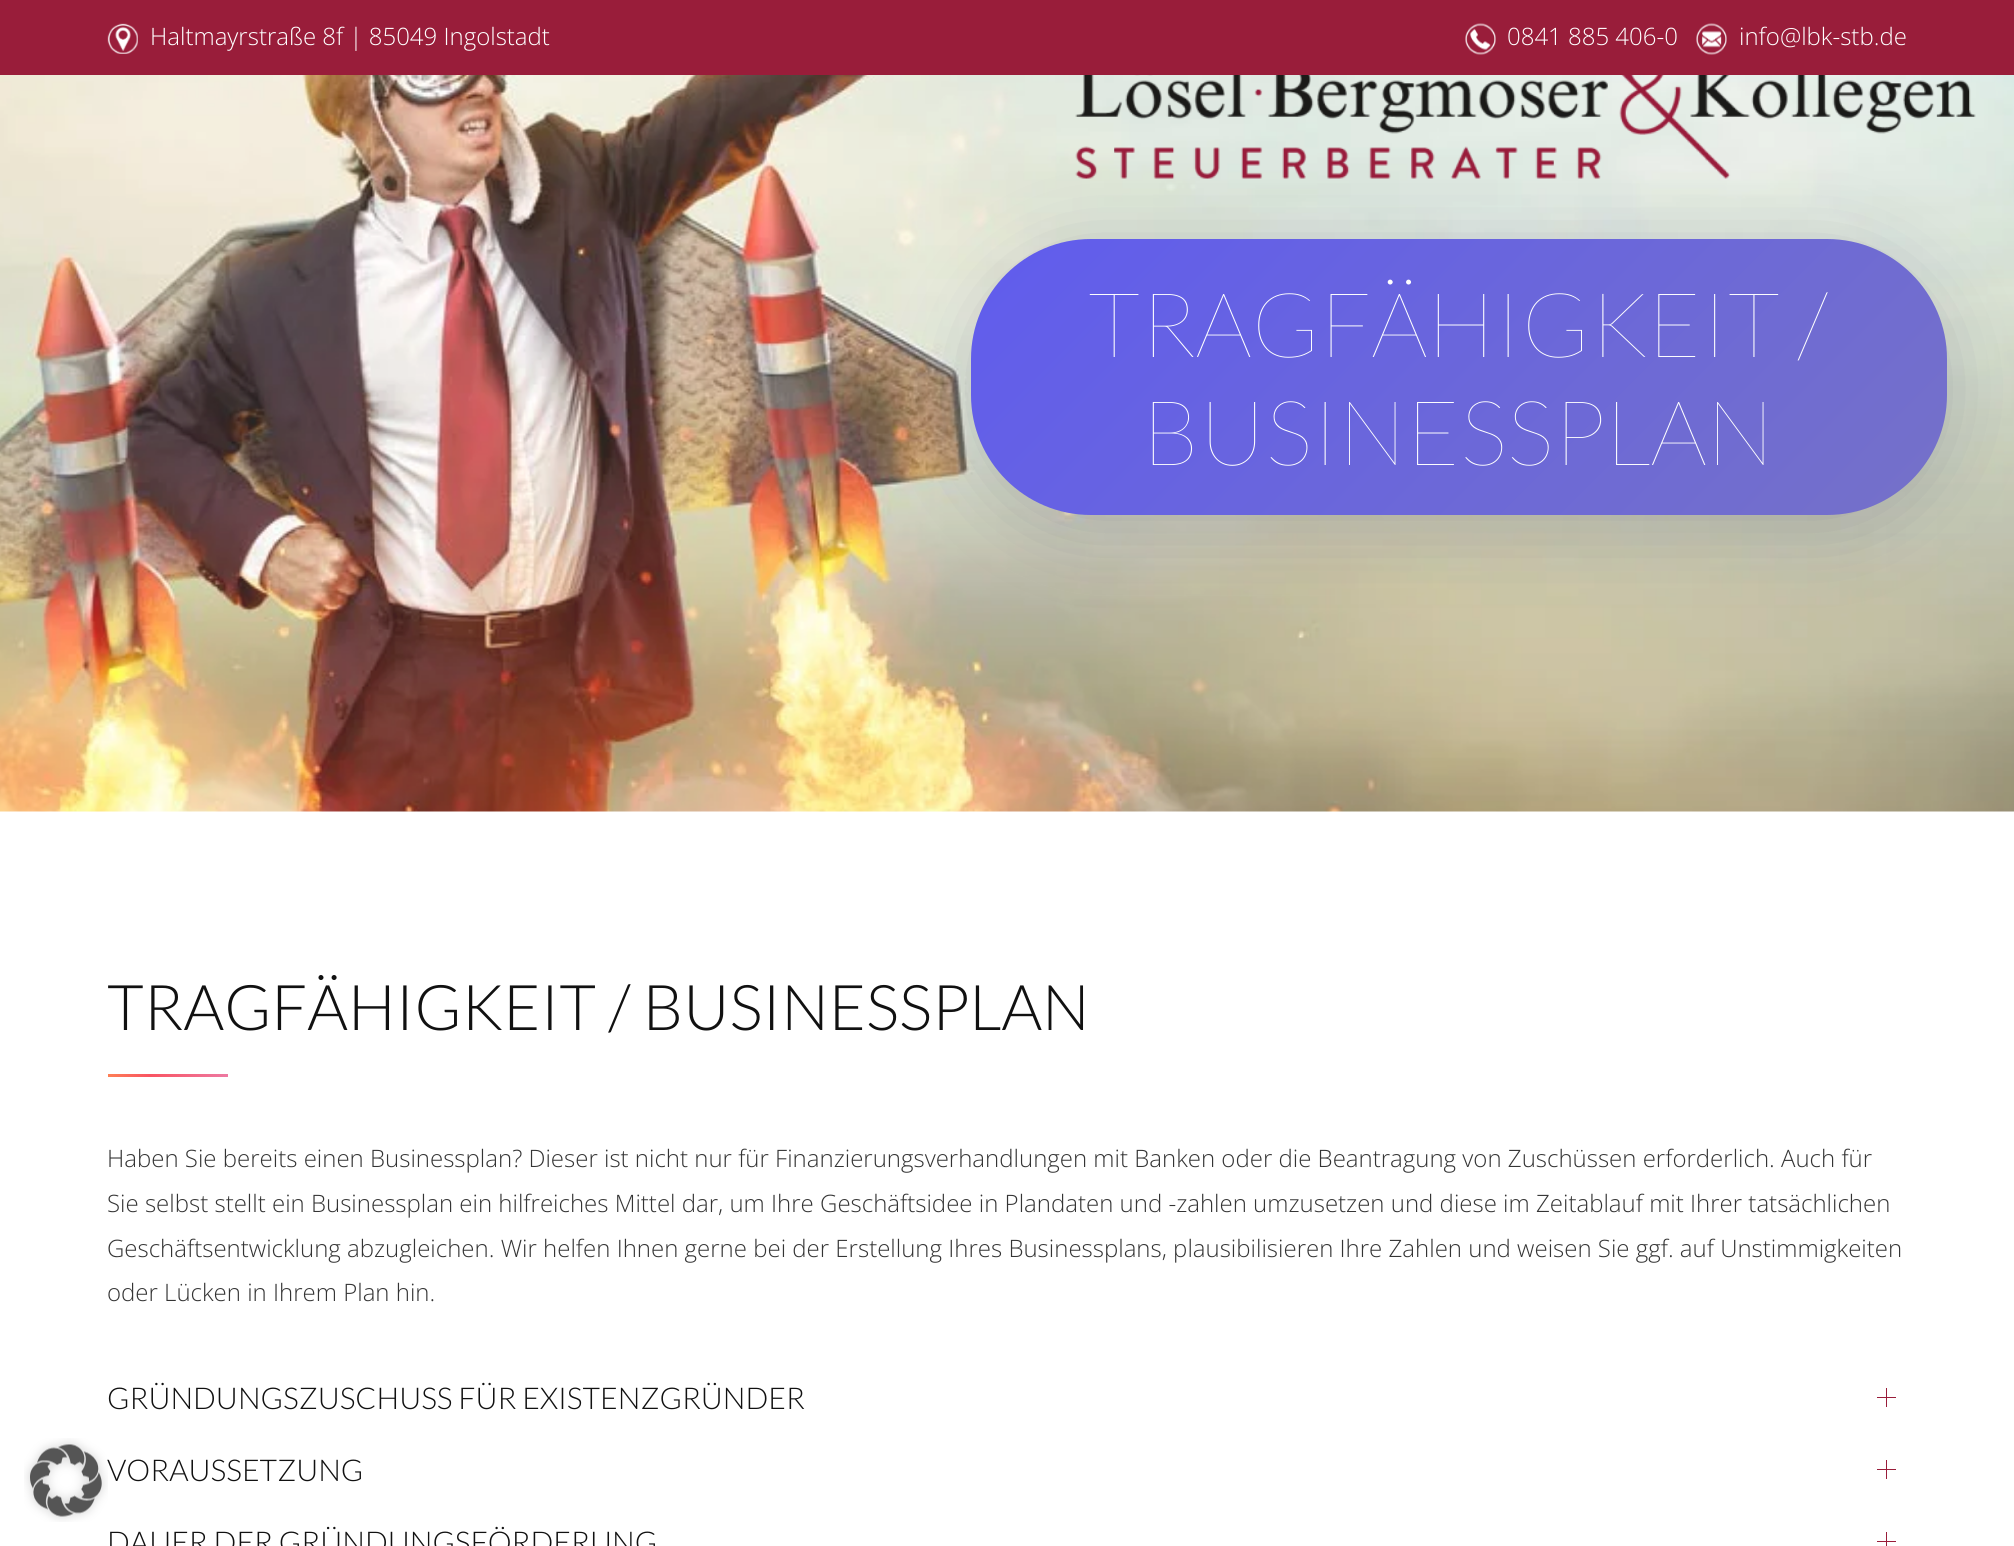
#include <cairo.h>
#include <math.h>
#include <stddef.h>

static cairo_t *c;
static void C(unsigned color){cairo_set_source_rgb(c, (color >> 16) / 255.0, (color >> 8 & 255) / 255.0, (color & 255) / 255.0);}
static void F(const char *family, double size, int italic, int bold){cairo_select_font_face(c, family, italic ? CAIRO_FONT_SLANT_ITALIC : CAIRO_FONT_SLANT_NORMAL,bold ? CAIRO_FONT_WEIGHT_BOLD : CAIRO_FONT_WEIGHT_NORMAL);cairo_set_font_size(c, size);}
static void T(double x, double y, const char *s){cairo_move_to(c, x, y);cairo_show_text(c, s);}
static void R(double x, double y, double w, double h){cairo_rectangle(c, x, y, w, h);cairo_fill(c);}
static void Q(double x, double y, double w, double h, double r){cairo_new_sub_path(c);cairo_arc(c, x + w - r, y + h - r, r, 0, M_PI / 2);cairo_arc(c, x + r, y + h - r, r, M_PI / 2, M_PI);cairo_arc(c, x + r, y + r, r, M_PI, 1.5 * M_PI);cairo_arc(c, x + w - r, y + r, r, 1.5 * M_PI, 2 * M_PI);cairo_close_path(c);}
static void S(double x, double y, double w, double h, double r, double blur, double alpha){cairo_push_group_with_content(c, CAIRO_CONTENT_ALPHA);cairo_set_operator(c, CAIRO_OPERATOR_SOURCE);for (int i = 15; i >= -15 && fmin(w, h) + blur * i / 3 > 0; i -= 2) {double e = blur * i / 6;cairo_set_source_rgba(c, 0, 0, 0, alpha * erfc((i - 1) / 8.5) / 2);Q(x - e, y - e, w + 2 * e, h + 2 * e, fmax(0, fmin(r + e + blur * .6, fmin(w, h) / 2 + e)));cairo_fill(c);}cairo_pattern_t *soft = cairo_pop_group(c);cairo_mask(c, soft);cairo_pattern_destroy(soft);}
static void I(const char *path, double x, double y, double w, double h){cairo_surface_t *image = cairo_image_surface_create_from_png(path);cairo_save(c);cairo_set_source_surface(c, image, x, y);cairo_rectangle(c, x, y, w, h);cairo_fill(c);cairo_restore(c);cairo_surface_destroy(image);}
int main(void) {
cairo_surface_t *surface = cairo_image_surface_create(CAIRO_FORMAT_RGB24, 2014, 1546);
c = cairo_create(surface);
cairo_font_options_t *options = cairo_font_options_create();
cairo_font_options_set_hint_metrics(options, CAIRO_HINT_METRICS_OFF);
cairo_font_options_set_hint_style(options, CAIRO_HINT_STYLE_NONE);
cairo_set_font_options(c, options);
cairo_set_miter_limit(c, 4);
cairo_pattern_t *gradient;
C(0xffffff);
cairo_paint(c);
I("1.png",24,1438,84,84);
C(0x991d3a);
R(0,0,2014,75);
I("2.png",107,23,31,31);
F("Open Sans Light",24,0,0);
C(0xffffff);
T(150,45,"Haltmayrstraße 8f | 85049 Ingolstadt");
I("3.png",1465,23,31,32);
T(1507,45,"0841 885 406-0");
I("4.png",1696,23,31,32);
T(1739,45,"info@lbk-stb.de");
I("5.png",0,75,2014,737);
I("6.png",1075,75,901,104);
C(0x545478);
S(971,251,976,276,120,37.5,.3);
gradient = cairo_pattern_create_linear(1145,63,1772,690);
cairo_pattern_add_color_stop_rgba(gradient,0,0.376,0.361,0.933,1);
cairo_pattern_add_color_stop_rgba(gradient,1,0.459,0.443,0.784,1);
cairo_set_source(c,gradient);
cairo_pattern_destroy(gradient);
Q(971,239,976,276,120);
cairo_fill(c);
F("Lato Thin",90,0,0);
C(0xffffff);
T(1088,357,"TRAGFÄHIGKEIT /");
T(1142,465,"BUSINESSPLAN");
F("Lato Light",63,0,0);
C(0x111111);
T(107,1030,"TRAGFÄHIGKEIT / BUSINESSPLAN");
I("7.png",108,1074,120,3);
F("Open Sans Light",24,0,0);
C(0x343434);
T(107,1167,"Haben Sie bereits einen Businessplan? Dieser ist nicht nur für Finanzierungsverhandlungen mit Banken oder die Beantragung von Zuschüssen erforderlich. Auch für");
T(107,1212,"Sie selbst stellt ein Businessplan ein hilfreiches Mittel dar, um Ihre Geschäftsidee in Plandaten und -zahlen umzusetzen und diese im Zeitablauf mit Ihrer tatsächlichen");
T(107,1257,"Geschäftsentwicklung abzugleichen. Wir helfen Ihnen gerne bei der Erstellung Ihres Businessplans, plausibilisieren Ihre Zahlen und weisen Sie ggf. auf Unstimmigkeiten");
T(107,1301,"oder Lücken in Ihrem Plan hin.");
F("Lato Light",30,0,0);
C(0x111111);
T(107,1409,"GRÜNDUNGSZUSCHUSS FÜR EXISTENZGRÜNDER");
C(0x991d3a);
R(1877,1397,19,1);
R(1886,1388,1,19);
C(0x111111);
T(107,1481,"VORAUSSETZUNG");
C(0x991d3a);
R(1877,1469,19,1);
R(1886,1460,1,19);
C(0x111111);
T(107,1553,"DAUER DER GRÜNDUNGSFÖRDERUNG");
C(0x991d3a);
R(1877,1541,19,1);
R(1886,1532,1,14);
cairo_surface_write_to_png(surface, "o.png");
cairo_font_options_destroy(options);
cairo_destroy(c);
cairo_surface_destroy(surface);
return 0;
}
